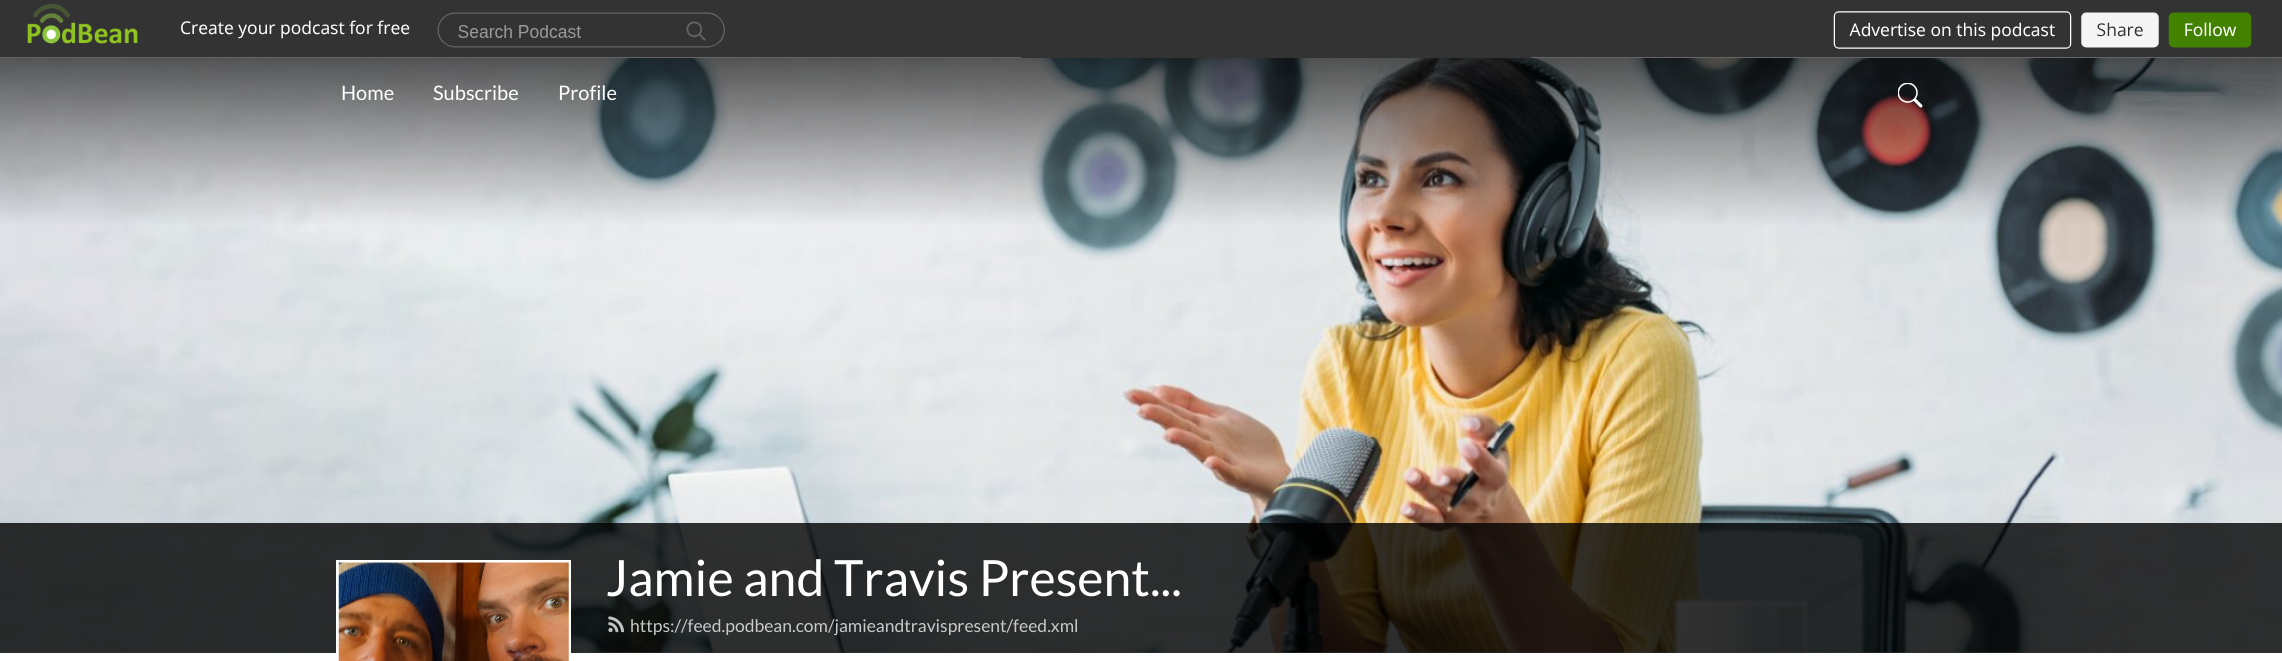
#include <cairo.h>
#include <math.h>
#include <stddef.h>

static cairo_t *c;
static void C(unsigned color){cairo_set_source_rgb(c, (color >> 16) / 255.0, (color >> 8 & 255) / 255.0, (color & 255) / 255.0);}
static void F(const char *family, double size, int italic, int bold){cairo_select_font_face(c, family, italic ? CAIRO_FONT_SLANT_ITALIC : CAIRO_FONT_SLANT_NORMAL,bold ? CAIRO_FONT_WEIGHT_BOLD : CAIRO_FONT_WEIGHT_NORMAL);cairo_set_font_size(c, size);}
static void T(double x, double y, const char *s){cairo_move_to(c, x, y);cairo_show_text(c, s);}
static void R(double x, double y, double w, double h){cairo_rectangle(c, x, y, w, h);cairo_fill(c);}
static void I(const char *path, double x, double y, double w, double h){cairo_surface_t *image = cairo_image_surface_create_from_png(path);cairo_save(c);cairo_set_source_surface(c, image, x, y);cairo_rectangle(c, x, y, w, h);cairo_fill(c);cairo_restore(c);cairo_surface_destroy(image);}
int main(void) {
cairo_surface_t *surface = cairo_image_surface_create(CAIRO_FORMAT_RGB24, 2282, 661);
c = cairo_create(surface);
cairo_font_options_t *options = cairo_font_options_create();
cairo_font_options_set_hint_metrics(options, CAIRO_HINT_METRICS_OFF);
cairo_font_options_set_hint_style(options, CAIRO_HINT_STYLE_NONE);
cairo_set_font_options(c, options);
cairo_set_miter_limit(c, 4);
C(0xffffff);
cairo_paint(c);
C(0x333333);
R(0,0,2282,4);
I("1.png",0,4,2282,54);
I("4.png",0,58,2282,595);
F("Lato",20,0,0);
C(0xffffff);
T(341,100,"Home");
T(433,100,"Subscribe");
T(558,100,"Profile");
I("2.png",1898,83,25,25);
cairo_set_source_rgba(c,0,0,0,0.8);
R(0,523,2282,130);
cairo_rectangle(c,337.5,561.5,232,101);
C(0xffffff);
cairo_set_line_width(c,3);
cairo_stroke(c);
I("3.png",338,562,231,99);
F("Lato",50,0,0);
T(606,596,"Jamie and Travis Present...");
I("5.png",608,616,17,17);
F("Lato",17.5,0,0);
C(0xc9caca);
T(630,632,"https://feed.podbean.com/jamieandtravispresent/feed.xml");
cairo_surface_write_to_png(surface, "o.png");
cairo_font_options_destroy(options);
cairo_destroy(c);
cairo_surface_destroy(surface);
return 0;
}
